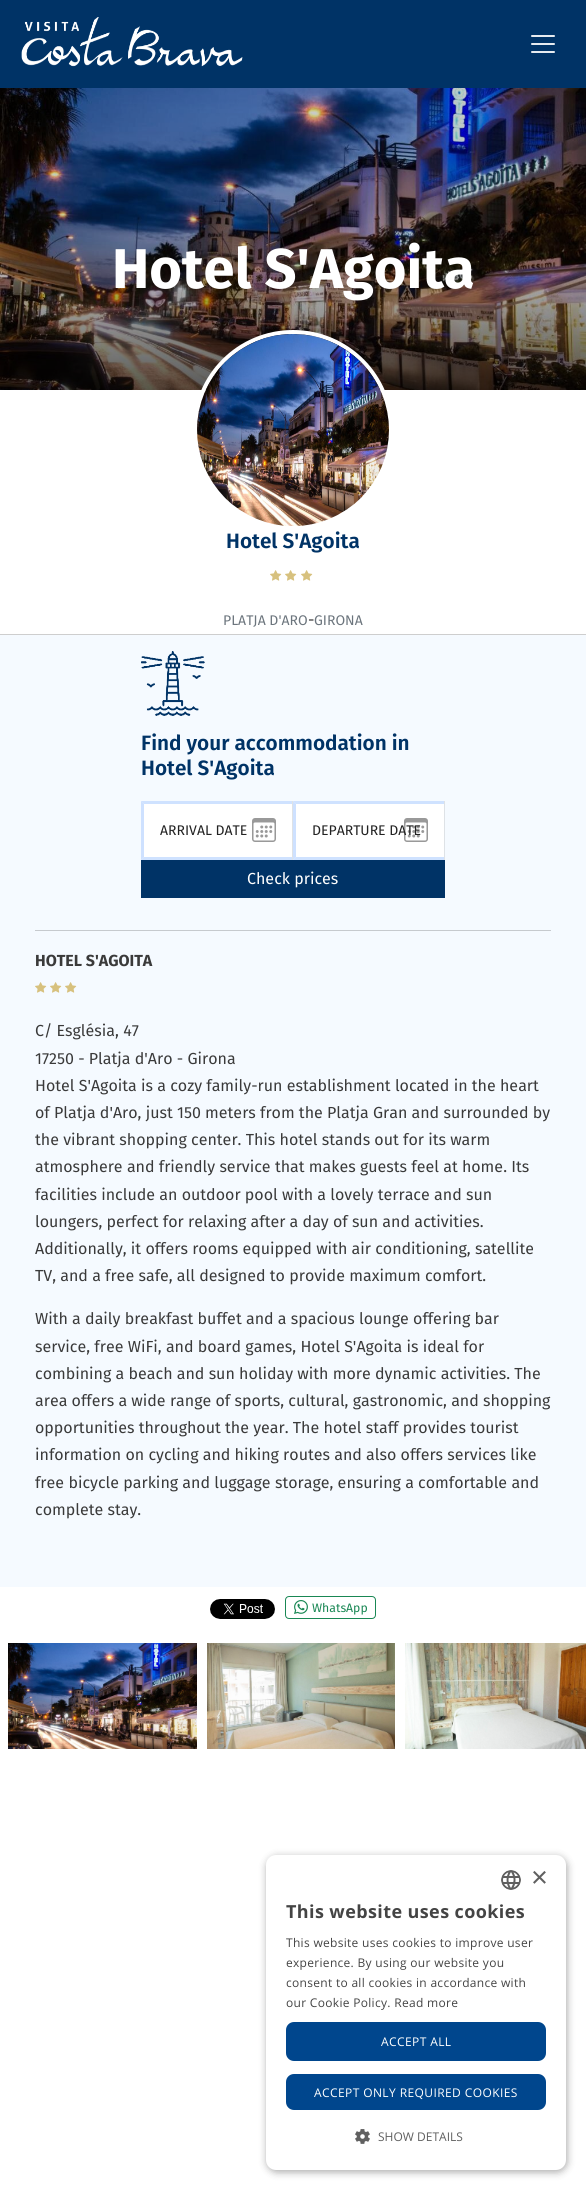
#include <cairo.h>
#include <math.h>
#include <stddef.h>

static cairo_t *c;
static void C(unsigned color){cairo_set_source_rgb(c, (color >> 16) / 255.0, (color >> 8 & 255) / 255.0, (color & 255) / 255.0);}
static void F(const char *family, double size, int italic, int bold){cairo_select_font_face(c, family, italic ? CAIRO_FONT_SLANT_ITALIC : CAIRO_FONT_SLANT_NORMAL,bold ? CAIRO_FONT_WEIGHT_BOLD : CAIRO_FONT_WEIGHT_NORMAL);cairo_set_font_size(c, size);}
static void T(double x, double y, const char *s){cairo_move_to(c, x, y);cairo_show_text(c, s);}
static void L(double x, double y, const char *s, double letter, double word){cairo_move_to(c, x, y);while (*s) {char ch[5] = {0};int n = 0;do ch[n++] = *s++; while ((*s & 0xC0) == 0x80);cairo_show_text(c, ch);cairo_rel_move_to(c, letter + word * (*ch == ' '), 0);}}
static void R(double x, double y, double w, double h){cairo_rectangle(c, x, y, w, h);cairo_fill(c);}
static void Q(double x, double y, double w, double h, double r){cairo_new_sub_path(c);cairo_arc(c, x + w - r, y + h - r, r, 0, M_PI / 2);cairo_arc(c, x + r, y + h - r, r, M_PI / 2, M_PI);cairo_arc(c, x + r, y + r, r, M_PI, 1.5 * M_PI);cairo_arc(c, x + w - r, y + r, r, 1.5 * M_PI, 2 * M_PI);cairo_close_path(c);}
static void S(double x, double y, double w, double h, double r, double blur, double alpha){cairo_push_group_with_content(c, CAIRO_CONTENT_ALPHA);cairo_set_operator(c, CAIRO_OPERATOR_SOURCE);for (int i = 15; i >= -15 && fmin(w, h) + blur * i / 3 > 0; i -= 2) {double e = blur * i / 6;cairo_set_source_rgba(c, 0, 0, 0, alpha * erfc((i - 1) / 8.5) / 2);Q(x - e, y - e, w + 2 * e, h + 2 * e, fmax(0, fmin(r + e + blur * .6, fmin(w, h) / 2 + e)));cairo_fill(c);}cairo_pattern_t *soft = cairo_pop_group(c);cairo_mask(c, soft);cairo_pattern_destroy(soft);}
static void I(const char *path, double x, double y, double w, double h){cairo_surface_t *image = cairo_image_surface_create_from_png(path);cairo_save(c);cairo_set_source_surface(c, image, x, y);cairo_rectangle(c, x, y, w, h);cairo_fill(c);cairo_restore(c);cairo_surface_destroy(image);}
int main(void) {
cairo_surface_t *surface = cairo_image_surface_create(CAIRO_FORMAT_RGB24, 586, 2190);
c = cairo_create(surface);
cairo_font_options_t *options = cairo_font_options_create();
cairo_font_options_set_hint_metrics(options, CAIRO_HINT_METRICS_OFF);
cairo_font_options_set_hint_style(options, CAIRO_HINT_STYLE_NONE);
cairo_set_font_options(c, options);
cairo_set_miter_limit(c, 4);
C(0xffffff);
cairo_paint(c);
C(0x003366);
R(0,0,586,88);
I("1.png",21,17,222,50);
I("2.png",531,35,24,18);
I("3.png",0,88,586,302);
F("Fira Sans",56,0,1);
C(0xffffff);
T(112,288,"Hotel S'Agoita");
cairo_new_path(c);
cairo_arc(c,293,430,98,0,2 * M_PI);
cairo_set_line_width(c,4);
cairo_stroke(c);
I("4.png",197,334,192,192);
F("Fira Sans SemiBold",20.75,0,0);
C(0x003366);
T(226,548,"Hotel S'Agoita");
I("5.png",270,570,12,11);
I("5.png",285,570,12,11);
I("5.png",301,570,12,11);
F("Fira Sans",14,0,0);
C(0x6c757d);
T(223,625,"PLATJA D'ARO");
F("Fira Sans",16,0,0);
C(0x3a3a3a);
T(308,625,"-");
F("Fira Sans",14,0,0);
C(0x6c757d);
T(314,625,"GIRONA");
C(0xcecece);
R(0,634,586,1);
C(0xf5faff);
R(0,635,586,952);
I("6.png",141,651,64,65);
F("Fira Sans SemiBold",20.75,0,0);
C(0x003366);
T(141,750,"Find your accommodation in");
T(141,775,"Hotel S'Agoita");
C(0xffffff);
R(141,801,303,59);
C(0xdee2e6);
R(292,801,1,59);
C(0xcfe2ff);
cairo_new_path(c);
cairo_move_to(c,141,801);
cairo_line_to(c,292,801);
cairo_line_to(c,292,804);
cairo_line_to(c,144,804);
cairo_close_path(c);
cairo_fill(c);
cairo_new_path(c);
cairo_move_to(c,292,860);
cairo_line_to(c,141,860);
cairo_line_to(c,144,857);
cairo_line_to(c,292,857);
cairo_close_path(c);
cairo_fill(c);
cairo_set_source_rgba(c,0.62,0.769,1,0.5);
cairo_new_path(c);
cairo_move_to(c,141,860);
cairo_line_to(c,141,801);
cairo_line_to(c,144,804);
cairo_line_to(c,144,857);
cairo_close_path(c);
cairo_fill(c);
F("Fira Sans",14,0,0);
C(0x222222);
T(160,835,"ARRIVAL DATE");
I("7.png",252,818,24,24);
C(0xdee2e6);
R(444,801,1,59);
C(0xcfe2ff);
cairo_new_path(c);
cairo_move_to(c,293,801);
cairo_line_to(c,444,801);
cairo_line_to(c,444,804);
cairo_line_to(c,296,804);
cairo_close_path(c);
cairo_fill(c);
cairo_new_path(c);
cairo_move_to(c,444,860);
cairo_line_to(c,293,860);
cairo_line_to(c,296,857);
cairo_line_to(c,444,857);
cairo_close_path(c);
cairo_fill(c);
cairo_set_source_rgba(c,0.62,0.769,1,0.5);
cairo_new_path(c);
cairo_move_to(c,293,860);
cairo_line_to(c,293,801);
cairo_line_to(c,296,804);
cairo_line_to(c,296,857);
cairo_close_path(c);
cairo_fill(c);
I("7.png",404,818,24,24);
C(0x222222);
T(312,835,"DEPARTURE DATE");
C(0x003366);
R(141,860,304,38);
F("Fira Sans",16,0,0);
C(0xffffff);
T(247,884,"Check prices");
C(0xc6cace);
R(35,930,516,1);
F("Fira Sans",16,0,1);
C(0x3a3a3a);
T(35,966,"HOTEL S'AGOITA");
I("8.png",35,982,12,11);
I("8.png",50,982,12,11);
I("8.png",65,982,12,11);
F("Fira Sans",16,0,0);
T(35,1036,"C/ Església, 47");
T(35,1064,"17250 - Platja d'Aro - Girona");
T(35,1091,"Hotel S'Agoita is a cozy family-run establishment located in the heart");
T(35,1118,"of Platja d'Aro, just 150 meters from the Platja Gran and surrounded by");
T(35,1145,"the vibrant shopping center. This hotel stands out for its warm");
T(35,1172,"atmosphere and friendly service that makes guests feel at home. Its");
T(35,1200,"facilities include an outdoor pool with a lovely terrace and sun");
T(35,1227,"loungers, perfect for relaxing after a day of sun and activities.");
T(35,1254,"Additionally, it offers rooms equipped with air conditioning, satellite");
T(35,1281,"TV, and a free safe, all designed to provide maximum comfort.");
T(35,1324,"With a daily breakfast buffet and a spacious lounge offering bar");
T(35,1352,"service, free WiFi, and board games, Hotel S'Agoita is ideal for");
T(35,1379,"combining a beach and sun holiday with more dynamic activities. The");
T(35,1406,"area offers a wide range of sports, cultural, gastronomic, and shopping");
T(35,1433,"opportunities throughout the year. The hotel staff provides tourist");
T(35,1460,"information on cycling and hiking routes and also offers services like");
T(35,1488,"free bicycle parking and luggage storage, ensuring a comfortable and");
T(35,1515,"complete stay.");
I("9.png",210,1599,65,20);
Q(285.5,1596.5,90,22,3.5);
C(0x198754);
cairo_set_line_width(c,1);
cairo_stroke(c);
I("10.png",294,1600,14,14);
F("Fira Sans",12.25,0,0);
T(312,1612,"WhatsApp");
I("11.png",8,1643,189,106);
I("12.png",207,1643,188,106);
I("13.png",405,1643,181,106);
C(0x000000);
S(267,1857,300,315,10,4,.35);
C(0xffffff);
Q(266,1855,300,315,10);
cairo_fill(c);
I("14.png",501,1870,20,20);
F("Liberation Sans",29,0,0);
C(0x606060);
T(531,1887,"×");
F("Open Sans",18,0,1);
C(0x444444);
L(286,1918,"This website uses cookies",.4,0);
F("Open Sans",12,0,0);
L(286,1947,"This website uses cookies to improve user",.3,0);
L(286,1967,"experience. By using our website you",.3,0);
L(286,1987,"consent to all cookies in accordance with",.3,0);
L(286,2007,"our Cookie Policy. Read more",.3,0);
C(0x00468d);
Q(286,2022,260,39,8);
cairo_fill(c);
C(0xffffff);
L(381,2046,"ACCEPT ALL",.4,0);
C(0x00468d);
Q(286,2074,260,36,8);
cairo_fill(c);
C(0xffffff);
L(314,2097,"ACCEPT ONLY REQUIRED COOKIES",.4,0);
I("15.png",355,2129,15,15);
C(0x606060);
T(378,2141,"SHOW DETAILS");
cairo_surface_write_to_png(surface, "o.png");
cairo_font_options_destroy(options);
cairo_destroy(c);
cairo_surface_destroy(surface);
return 0;
}
